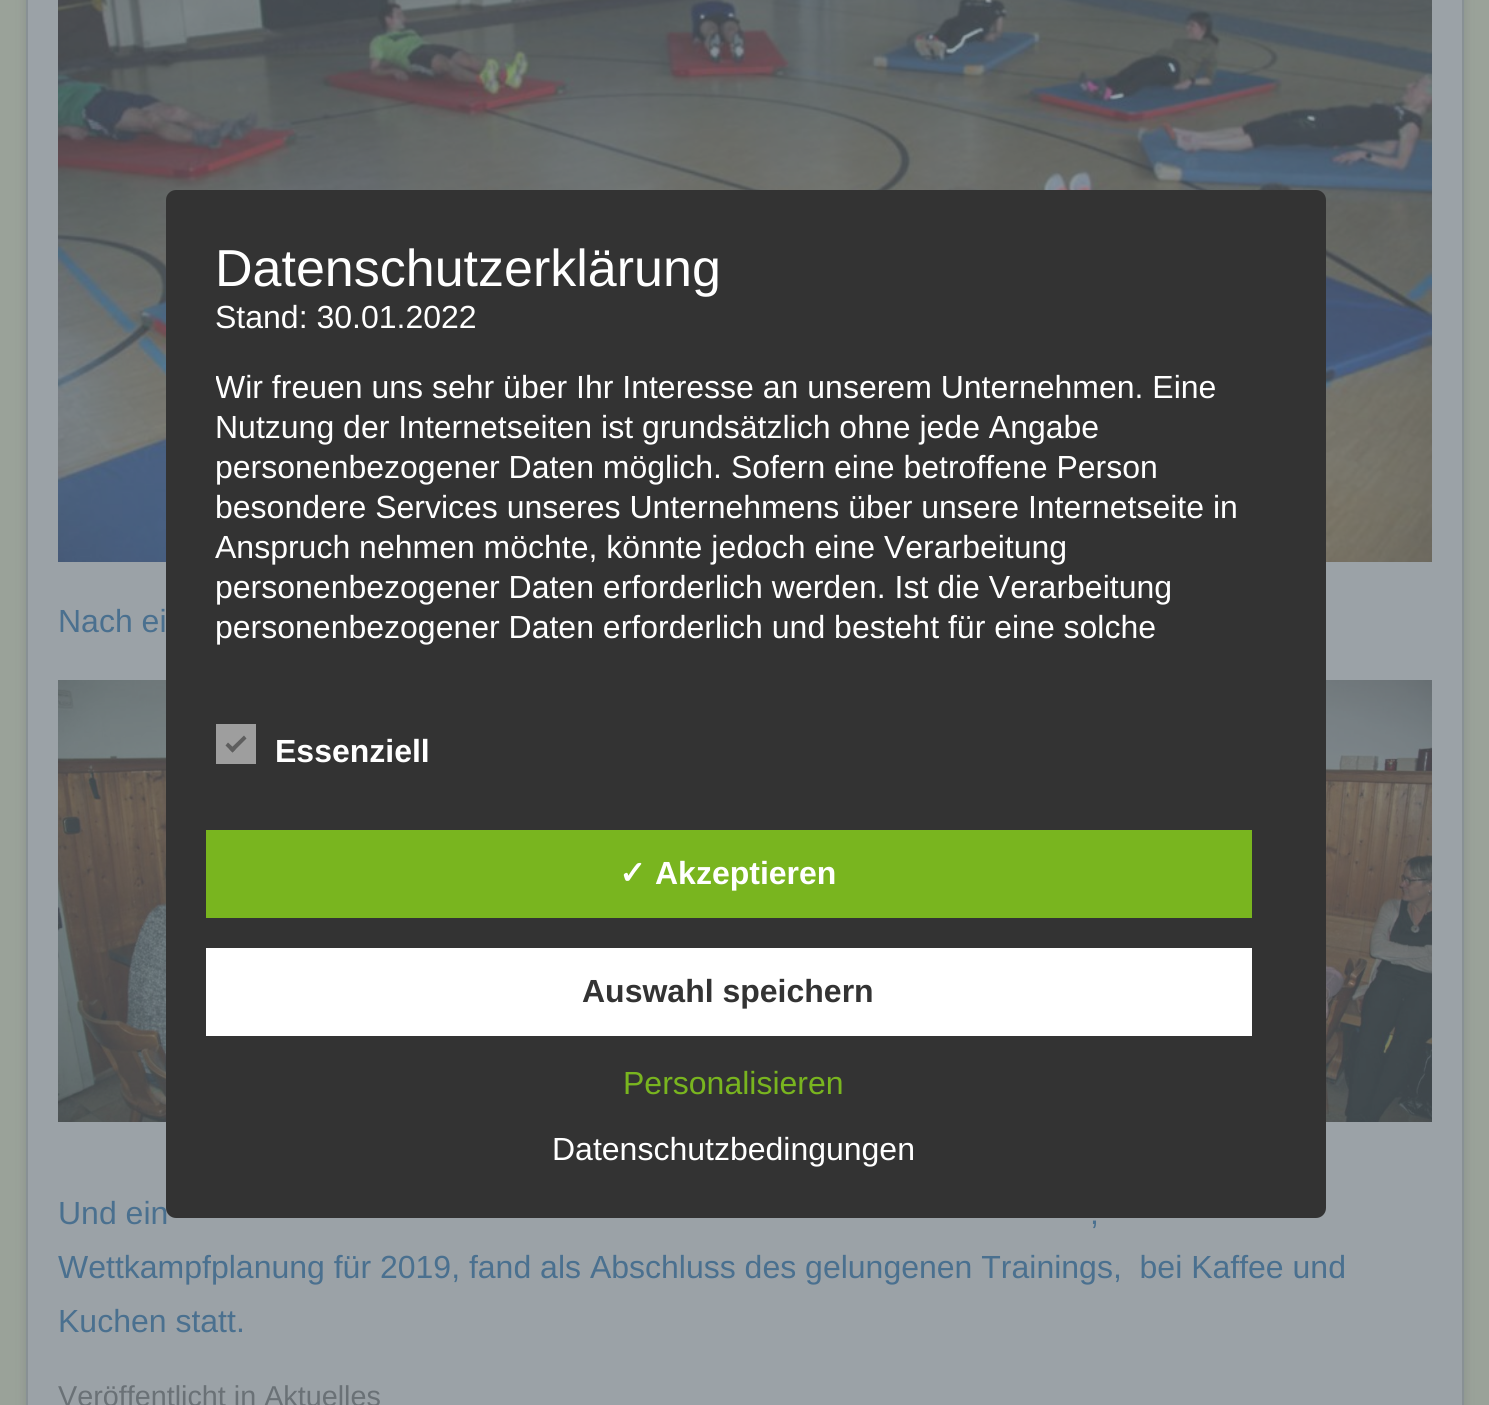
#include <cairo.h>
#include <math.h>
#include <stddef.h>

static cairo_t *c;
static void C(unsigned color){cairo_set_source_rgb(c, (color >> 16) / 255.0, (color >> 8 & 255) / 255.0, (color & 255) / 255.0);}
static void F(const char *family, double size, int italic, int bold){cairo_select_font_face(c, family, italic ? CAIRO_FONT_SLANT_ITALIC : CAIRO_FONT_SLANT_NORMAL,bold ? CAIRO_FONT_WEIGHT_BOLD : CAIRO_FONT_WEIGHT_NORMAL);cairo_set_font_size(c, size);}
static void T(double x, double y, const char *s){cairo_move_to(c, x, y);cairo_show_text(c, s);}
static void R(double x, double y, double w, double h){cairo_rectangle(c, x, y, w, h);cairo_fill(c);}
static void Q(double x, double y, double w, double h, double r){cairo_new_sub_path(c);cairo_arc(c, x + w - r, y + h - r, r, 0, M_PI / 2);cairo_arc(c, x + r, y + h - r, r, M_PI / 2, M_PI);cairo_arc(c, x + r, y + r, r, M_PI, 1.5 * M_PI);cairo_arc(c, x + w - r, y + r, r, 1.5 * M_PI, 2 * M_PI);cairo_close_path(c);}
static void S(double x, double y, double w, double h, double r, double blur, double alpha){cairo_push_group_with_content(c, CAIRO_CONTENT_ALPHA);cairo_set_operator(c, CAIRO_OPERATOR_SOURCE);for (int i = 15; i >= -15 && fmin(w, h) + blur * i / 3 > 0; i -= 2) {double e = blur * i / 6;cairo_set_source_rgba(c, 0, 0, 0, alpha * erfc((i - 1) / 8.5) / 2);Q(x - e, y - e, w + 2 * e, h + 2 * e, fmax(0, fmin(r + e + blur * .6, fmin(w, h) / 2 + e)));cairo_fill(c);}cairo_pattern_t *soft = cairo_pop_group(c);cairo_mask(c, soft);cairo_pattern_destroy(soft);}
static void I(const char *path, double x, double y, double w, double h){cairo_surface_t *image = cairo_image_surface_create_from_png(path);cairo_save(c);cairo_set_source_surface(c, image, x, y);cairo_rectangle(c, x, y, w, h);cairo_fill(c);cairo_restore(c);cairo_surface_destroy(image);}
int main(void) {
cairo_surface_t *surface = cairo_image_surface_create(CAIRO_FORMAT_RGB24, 1489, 1405);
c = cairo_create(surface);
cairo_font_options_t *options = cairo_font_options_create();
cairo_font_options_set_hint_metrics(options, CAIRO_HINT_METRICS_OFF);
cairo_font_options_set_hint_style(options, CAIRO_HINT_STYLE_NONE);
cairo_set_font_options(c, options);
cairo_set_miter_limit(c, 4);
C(0x9aa299);
cairo_paint(c);
C(0x3f464b);
S(26,-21,1438,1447,6,5,.2);
C(0x9ba2a7);
cairo_rectangle(c,27,-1,1436,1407);
cairo_fill_preserve(c);
C(0x889094);
cairo_stroke(c);
I("1.png",58,0,1374,562);
F("Liberation Sans",32,0,0);
C(0x4a708f);
T(58,1224,"Und ein");
C(0x333333);
Q(166,190,1160,1028,10);
cairo_fill(c);
F("Liberation Sans",52,0,0);
C(0xffffff);
T(215,286,"Datenschutzerklärung");
F("Liberation Sans",32,0,0);
T(215,328,"Stand: 30.01.2022");
cairo_save(c);
cairo_rectangle(c,216,240,1080,420);
cairo_clip(c);
T(215,398,"Wir freuen uns sehr über Ihr Interesse an unserem Unternehmen. Eine");
cairo_restore(c);
T(215,438,"Nutzung der Internetseiten ist grundsätzlich ohne jede Angabe");
T(215,478,"personenbezogener Daten möglich. Sofern eine betroffene Person");
T(215,518,"besondere Services unseres Unternehmens über unsere Internetseite in");
T(215,558,"Anspruch nehmen möchte, könnte jedoch eine Verarbeitung");
T(215,598,"personenbezogener Daten erforderlich werden. Ist die Verarbeitung");
T(215,638,"personenbezogener Daten erforderlich und besteht für eine solche");
C(0x9e9e9e);
R(216,724,40,40);
C(0x5e5e5e);
cairo_new_path(c);
cairo_move_to(c,244,735.5);
cairo_line_to(c,246.5,738.5);
cairo_line_to(c,232.5,752.5);
cairo_line_to(c,229.5,749.5);
cairo_close_path(c);
cairo_fill(c);
cairo_new_path(c);
cairo_move_to(c,228,742.5);
cairo_line_to(c,235.5,749.5);
cairo_line_to(c,232.5,752.5);
cairo_line_to(c,225.5,745.5);
cairo_close_path(c);
cairo_fill(c);
F("Liberation Sans",32,0,1);
C(0xffffff);
T(275,762,"Essenziell");
C(0x79b51f);
R(206,830,1046,88);
F("DejaVu Sans",32,0,1);
C(0xffffff);
T(619,884,"✓");
F("Liberation Sans",32,0,1);
T(655,884,"Akzeptieren");
R(206,948,1046,88);
C(0x333333);
T(582,1002,"Auswahl speichern");
F("Liberation Sans",32,0,0);
C(0x79b51f);
T(623,1094,"Personalisieren");
C(0xffffff);
T(552,1160,"Datenschutzbedingungen");
C(0x4a708f);
T(58,632,"Nach ei");
I("2.png",58,680,108,442);
I("3.png",1326,680,106,442);
T(1090,1224,",");
T(58,1278,"Wettkampfplanung für 2019, fand als Abschluss des gelungenen Trainings,  bei Kaffee und");
T(58,1332,"Kuchen statt.");
F("Liberation Sans",28.75,0,0);
C(0x6a7176);
T(58,1406,"Veröffentlicht in Aktuelles");
cairo_surface_write_to_png(surface, "o.png");
cairo_font_options_destroy(options);
cairo_destroy(c);
cairo_surface_destroy(surface);
return 0;
}
